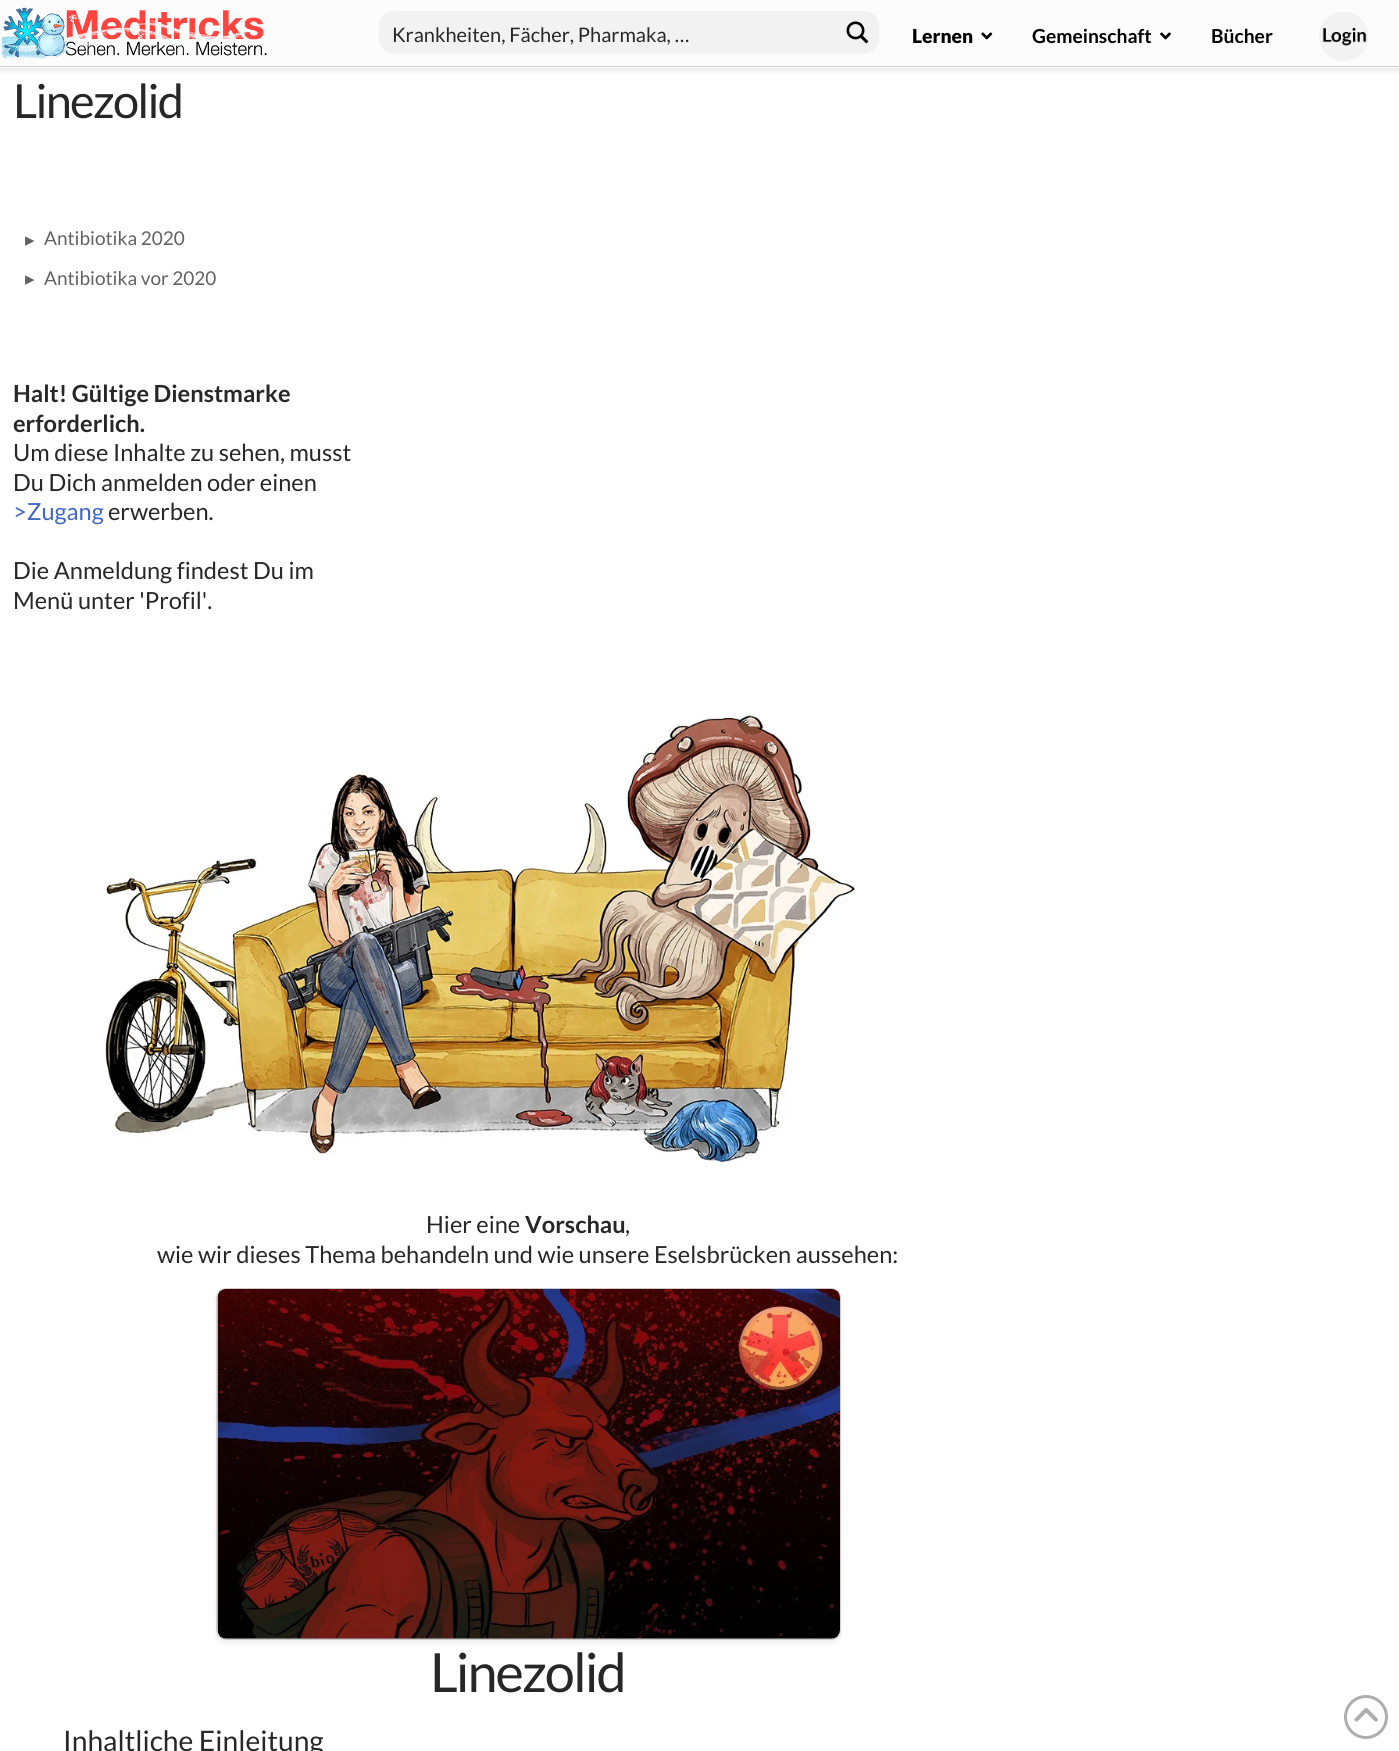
#include <cairo.h>
#include <math.h>
#include <stddef.h>

static cairo_t *c;
static void C(unsigned color){cairo_set_source_rgb(c, (color >> 16) / 255.0, (color >> 8 & 255) / 255.0, (color & 255) / 255.0);}
static void F(const char *family, double size, int italic, int bold){cairo_select_font_face(c, family, italic ? CAIRO_FONT_SLANT_ITALIC : CAIRO_FONT_SLANT_NORMAL,bold ? CAIRO_FONT_WEIGHT_BOLD : CAIRO_FONT_WEIGHT_NORMAL);cairo_set_font_size(c, size);}
static void T(double x, double y, const char *s){cairo_move_to(c, x, y);cairo_show_text(c, s);}
static void L(double x, double y, const char *s, double letter, double word){cairo_move_to(c, x, y);while (*s) {char ch[5] = {0};int n = 0;do ch[n++] = *s++; while ((*s & 0xC0) == 0x80);cairo_show_text(c, ch);cairo_rel_move_to(c, letter + word * (*ch == ' '), 0);}}
static void R(double x, double y, double w, double h){cairo_rectangle(c, x, y, w, h);cairo_fill(c);}
static void Q(double x, double y, double w, double h, double r){cairo_new_sub_path(c);cairo_arc(c, x + w - r, y + h - r, r, 0, M_PI / 2);cairo_arc(c, x + r, y + h - r, r, M_PI / 2, M_PI);cairo_arc(c, x + r, y + r, r, M_PI, 1.5 * M_PI);cairo_arc(c, x + w - r, y + r, r, 1.5 * M_PI, 2 * M_PI);cairo_close_path(c);}
static void S(double x, double y, double w, double h, double r, double blur, double alpha){cairo_push_group_with_content(c, CAIRO_CONTENT_ALPHA);cairo_set_operator(c, CAIRO_OPERATOR_SOURCE);for (int i = 15; i >= -15 && fmin(w, h) + blur * i / 3 > 0; i -= 2) {double e = blur * i / 6;cairo_set_source_rgba(c, 0, 0, 0, alpha * erfc((i - 1) / 8.5) / 2);Q(x - e, y - e, w + 2 * e, h + 2 * e, fmax(0, fmin(r + e + blur * .6, fmin(w, h) / 2 + e)));cairo_fill(c);}cairo_pattern_t *soft = cairo_pop_group(c);cairo_mask(c, soft);cairo_pattern_destroy(soft);}
static void I(const char *path, double x, double y, double w, double h){cairo_surface_t *image = cairo_image_surface_create_from_png(path);cairo_save(c);cairo_set_source_surface(c, image, x, y);cairo_rectangle(c, x, y, w, h);cairo_fill(c);cairo_restore(c);cairo_surface_destroy(image);}
int main(void) {
cairo_surface_t *surface = cairo_image_surface_create(CAIRO_FORMAT_RGB24, 1399, 1751);
c = cairo_create(surface);
cairo_font_options_t *options = cairo_font_options_create();
cairo_font_options_set_hint_metrics(options, CAIRO_HINT_METRICS_OFF);
cairo_font_options_set_hint_style(options, CAIRO_HINT_STYLE_NONE);
cairo_set_font_options(c, options);
cairo_set_miter_limit(c, 4);
C(0xffffff);
cairo_paint(c);
C(0x000000);
S(0,3,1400,67,0,3,.13);
C(0xffffff);
R(0,67,1399,1);
C(0xcccccc);
R(0,66,1399,1);
C(0xfcfcfc);
R(0,0,1399,66);
I("1.png",1,7,266,52);
C(0xf2f2f2);
Q(379,11,500,43,15);
cairo_fill(c);
F("Lato",20,0,0);
C(0x272727);
T(392,42,"Krankheiten, Fächer, Pharmaka, …");
I("2.png",846,21,23,23);
F("Lato Black",19.25,0,0);
C(0x000000);
T(912,43,"Lernen");
I("3.png",981,32,12,8);
F("Lato",19.25,0,1);
T(1032,43,"Gemeinschaft");
I("4.png",1160,32,11,8);
T(1211,43,"Bücher");
I("5.png",1319,11,50,50);
F("Lato",47,0,0);
C(0x272727);
L(13,118,"Linezolid",-1.75,0);
F("DejaVu Sans",19,0,0);
C(0x626262);
T(25,246,"▸");
F("Lato",19,0,0);
T(44,245,"Antibiotika 2020");
F("DejaVu Sans",19,0,0);
T(25,285,"▸");
F("Lato",19,0,0);
T(44,285,"Antibiotika vor 2020");
F("Lato",23.6,0,1);
C(0x272727);
T(13,402,"Halt! Gültige Dienstmarke");
T(13,432,"erforderlich.");
F("Lato",23.6,0,0);
T(13,461,"Um diese Inhalte zu sehen, musst");
T(13,491,"Du Dich anmelden oder einen");
C(0x4067c5);
T(13,520,">Zugang");
C(0x272727);
T(108,520,"erwerben.");
T(13,579,"Die Anmeldung findest Du im");
T(13,609,"Menü unter 'Profil'.");
I("6.png",105,713,750,450);
T(426,1233,"Hier eine");
F("Lato",23.6,0,1);
T(525,1233,"Vorschau");
F("Lato",23.6,0,0);
T(625,1233,",");
T(157,1263,"wie wir dieses Thema behandeln und wie unsere Eselsbrücken aussehen:");
C(0x000000);
S(216,1290,625,353,10,2.5,.07);
Q(216.5,1288.5,624,351,9.5);
cairo_set_source_rgba(c,0,0,0,0.15);
cairo_set_line_width(c,1);
cairo_stroke(c);
I("7.png",217,1288,623,351);
F("Lato",54,0,0);
C(0x272727);
L(430,1692,"Linezolid",-2,0);
F("Lato",28.25,0,0);
T(63,1751,"Inhaltliche Einleitung");
cairo_new_path(c);
cairo_arc(c,1366,1717,20.5,0,2 * M_PI);
C(0xaeaeae);
cairo_set_line_width(c,3);
cairo_stroke(c);
I("8.png",1354,1708,24,14);
cairo_surface_write_to_png(surface, "o.png");
cairo_font_options_destroy(options);
cairo_destroy(c);
cairo_surface_destroy(surface);
return 0;
}
